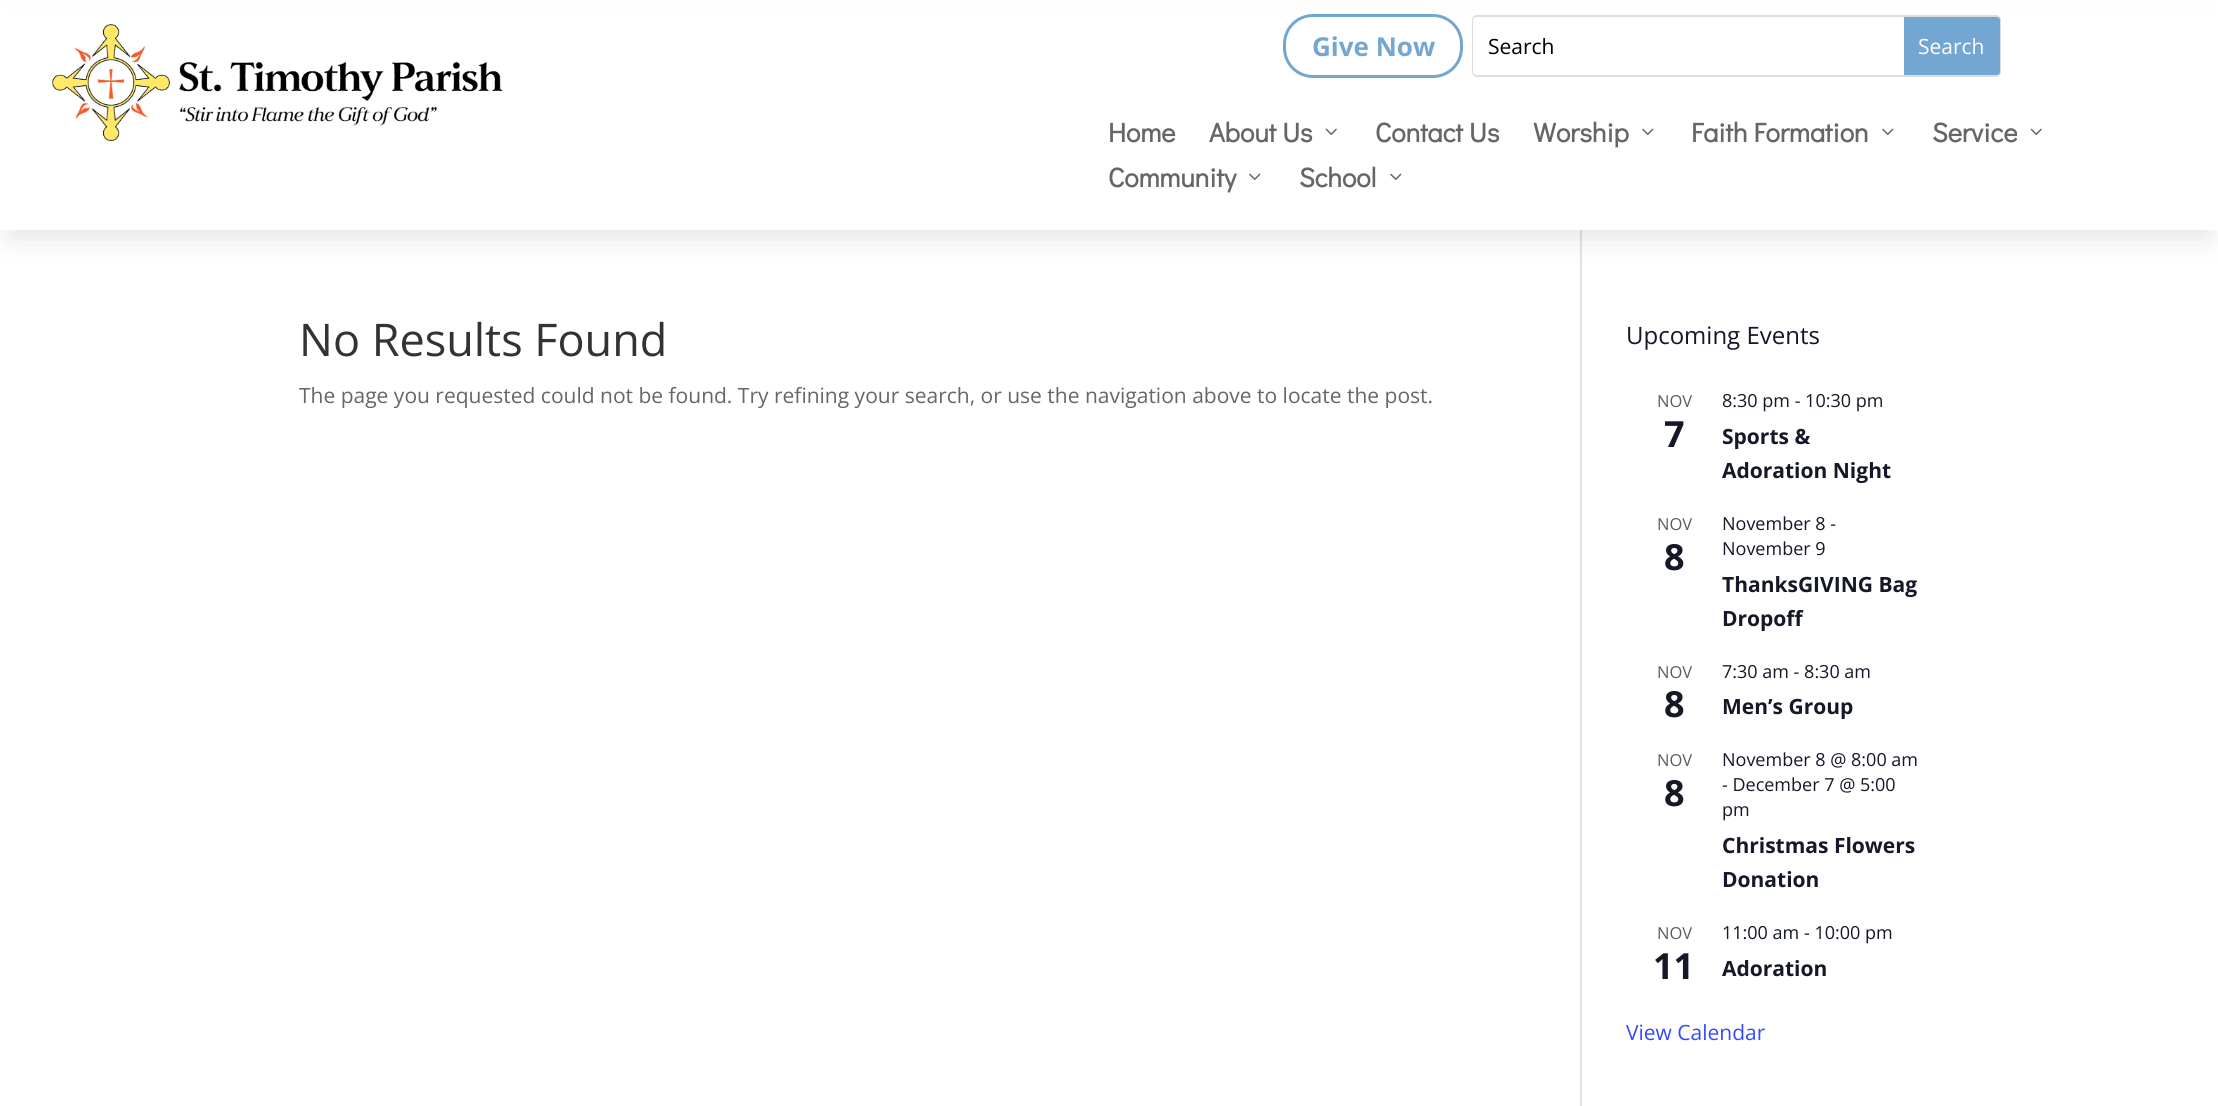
#include <cairo.h>
#include <math.h>
#include <stddef.h>

static cairo_t *c;
static void C(unsigned color){cairo_set_source_rgb(c, (color >> 16) / 255.0, (color >> 8 & 255) / 255.0, (color & 255) / 255.0);}
static void F(const char *family, double size, int italic, int bold){cairo_select_font_face(c, family, italic ? CAIRO_FONT_SLANT_ITALIC : CAIRO_FONT_SLANT_NORMAL,bold ? CAIRO_FONT_WEIGHT_BOLD : CAIRO_FONT_WEIGHT_NORMAL);cairo_set_font_size(c, size);}
static void T(double x, double y, const char *s){cairo_move_to(c, x, y);cairo_show_text(c, s);}
static void R(double x, double y, double w, double h){cairo_rectangle(c, x, y, w, h);cairo_fill(c);}
static void Q(double x, double y, double w, double h, double r){cairo_new_sub_path(c);cairo_arc(c, x + w - r, y + h - r, r, 0, M_PI / 2);cairo_arc(c, x + r, y + h - r, r, M_PI / 2, M_PI);cairo_arc(c, x + r, y + r, r, M_PI, 1.5 * M_PI);cairo_arc(c, x + w - r, y + r, r, 1.5 * M_PI, 2 * M_PI);cairo_close_path(c);}
static void S(double x, double y, double w, double h, double r, double blur, double alpha){cairo_push_group_with_content(c, CAIRO_CONTENT_ALPHA);cairo_set_operator(c, CAIRO_OPERATOR_SOURCE);for (int i = 15; i >= -15 && fmin(w, h) + blur * i / 3 > 0; i -= 2) {double e = blur * i / 6;cairo_set_source_rgba(c, 0, 0, 0, alpha * erfc((i - 1) / 8.5) / 2);Q(x - e, y - e, w + 2 * e, h + 2 * e, fmax(0, fmin(r + e + blur * .6, fmin(w, h) / 2 + e)));cairo_fill(c);}cairo_pattern_t *soft = cairo_pop_group(c);cairo_mask(c, soft);cairo_pattern_destroy(soft);}
static void I(const char *path, double x, double y, double w, double h){cairo_surface_t *image = cairo_image_surface_create_from_png(path);cairo_save(c);cairo_set_source_surface(c, image, x, y);cairo_rectangle(c, x, y, w, h);cairo_fill(c);cairo_restore(c);cairo_surface_destroy(image);}
int main(void) {
cairo_surface_t *surface = cairo_image_surface_create(CAIRO_FORMAT_RGB24, 2218, 1106);
c = cairo_create(surface);
cairo_font_options_t *options = cairo_font_options_create();
cairo_font_options_set_hint_metrics(options, CAIRO_HINT_METRICS_OFF);
cairo_font_options_set_hint_style(options, CAIRO_HINT_STYLE_NONE);
cairo_set_font_options(c, options);
cairo_set_miter_limit(c, 4);
C(0xffffff);
cairo_paint(c);
C(0xe2e2e2);
R(1580,230,2,876);
C(0x000000);
S(9,27,2201,212,0,13.5,.1);
C(0xffffff);
R(0,10,2218,220);
I("1.png",52,24,451,117);
Q(1284.5,15.5,177,61,28.5);
C(0x73a7d2);
cairo_set_line_width(c,3);
cairo_stroke(c);
F("Open Sans",26,0,1);
T(1312,56,"Give Now");
Q(1473,16,527,60,4);
C(0xdddddd);
cairo_set_line_width(c,2);
cairo_stroke(c);
C(0xffffff);
cairo_new_path(c);
cairo_move_to(c,1476,17);
cairo_line_to(c,1904,17);
cairo_line_to(c,1904,75);
cairo_line_to(c,1476,75);
cairo_curve_to(c,1474.5,75,1473,73.5,1473,72);
cairo_line_to(c,1473,20);
cairo_curve_to(c,1473,18.5,1474.5,17,1476,17);
cairo_close_path(c);
cairo_fill(c);
F("Open Sans",21,0,0);
C(0x000000);
T(1488,54,"Search");
C(0x73a7d2);
cairo_new_path(c);
cairo_move_to(c,1904,17);
cairo_line_to(c,1997,17);
cairo_curve_to(c,1998.5,17,2000,18.5,2000,20);
cairo_line_to(c,2000,72);
cairo_curve_to(c,2000,73.5,1998.5,75,1997,75);
cairo_line_to(c,1904,75);
cairo_close_path(c);
cairo_fill(c);
C(0xffffff);
T(1918,54,"Search");
F("Didact Gothic",27,0,1);
C(0x666666);
T(1108,142,"Home");
T(1209,142,"About Us");
I("2.png",1325,128,12,7);
T(1375,142,"Contact Us");
T(1533,142,"Worship");
I("3.png",1642,128,12,7);
T(1691,142,"Faith Formation");
I("3.png",1882,128,12,7);
T(1932,142,"Service");
I("2.png",2030,128,12,7);
T(1108,187,"Community");
I("3.png",1249,173,12,7);
T(1299,187,"School");
I("3.png",1390,173,12,7);
F("Open Sans",45,0,0);
C(0x333333);
T(299,356,"No Results Found");
F("Open Sans",21,0,0);
C(0x666666);
T(299,403,"The page you requested could not be found. Try refining your search, or use the navigation above to locate the post.");
F("Open Sans",24,0,0);
C(0x141827);
T(1626,344,"Upcoming Events");
F("Open Sans",16.5,0,0);
C(0x5d5d5d);
T(1657,407,"NOV");
F("Open Sans",36,0,1);
C(0x141827);
T(1664,447,"7");
F("Open Sans",18,0,0);
T(1722,407,"8:30 pm - 10:30 pm");
F("Open Sans",21,0,1);
T(1722,444,"Sports &");
T(1722,478,"Adoration Night");
F("Open Sans",16.5,0,0);
C(0x5d5d5d);
T(1657,530,"NOV");
F("Open Sans",36,0,1);
C(0x141827);
T(1664,570,"8");
F("Open Sans",18,0,0);
T(1722,530,"November 8 -");
T(1722,555,"November 9");
F("Open Sans",21,0,1);
T(1722,592,"ThanksGIVING Bag");
T(1722,626,"Dropoff");
F("Open Sans",16.5,0,0);
C(0x5d5d5d);
T(1657,678,"NOV");
F("Open Sans",36,0,1);
C(0x141827);
T(1664,717,"8");
F("Open Sans",18,0,0);
T(1722,678,"7:30 am - 8:30 am");
F("Open Sans",21,0,1);
T(1722,714,"Men’s Group");
F("Open Sans",16.5,0,0);
C(0x5d5d5d);
T(1657,766,"NOV");
F("Open Sans",36,0,1);
C(0x141827);
T(1664,806,"8");
F("Open Sans",18,0,0);
T(1722,766,"November 8 @ 8:00 am");
T(1722,791,"- December 7 @ 5:00");
T(1722,816,"pm");
F("Open Sans",21,0,1);
T(1722,853,"Christmas Flowers");
T(1722,887,"Donation");
F("Open Sans",16.5,0,0);
C(0x5d5d5d);
T(1657,939,"NOV");
F("Open Sans",36,0,1);
C(0x141827);
T(1653,979,"11");
F("Open Sans",18,0,0);
T(1722,939,"11:00 am - 10:00 pm");
F("Open Sans",21,0,1);
T(1722,976,"Adoration");
F("Open Sans",21,0,0);
C(0x334aff);
T(1626,1040,"View Calendar");
cairo_surface_write_to_png(surface, "o.png");
cairo_font_options_destroy(options);
cairo_destroy(c);
cairo_surface_destroy(surface);
return 0;
}
